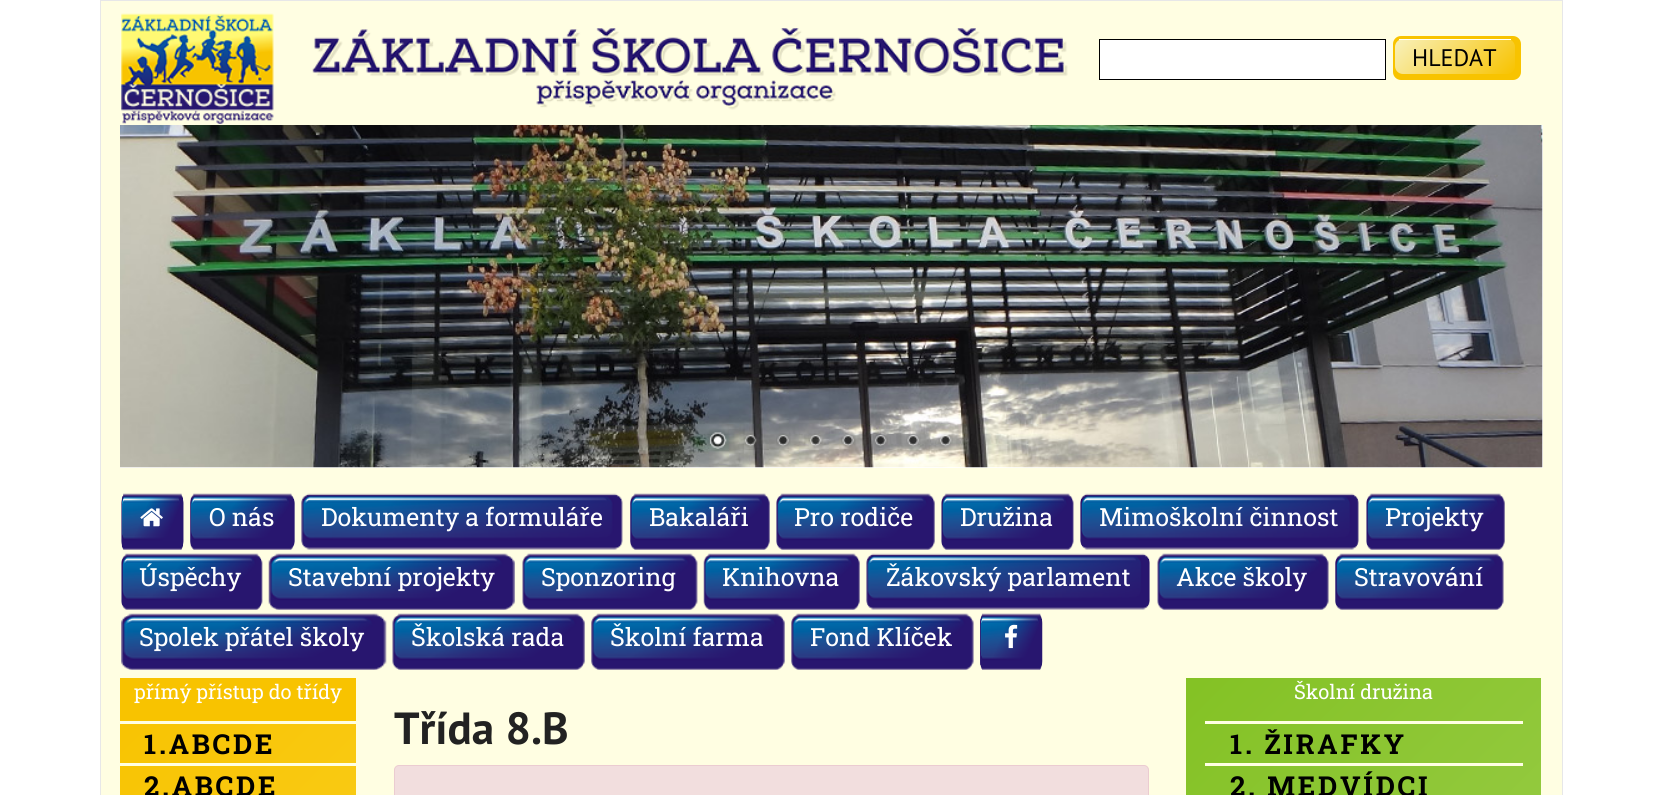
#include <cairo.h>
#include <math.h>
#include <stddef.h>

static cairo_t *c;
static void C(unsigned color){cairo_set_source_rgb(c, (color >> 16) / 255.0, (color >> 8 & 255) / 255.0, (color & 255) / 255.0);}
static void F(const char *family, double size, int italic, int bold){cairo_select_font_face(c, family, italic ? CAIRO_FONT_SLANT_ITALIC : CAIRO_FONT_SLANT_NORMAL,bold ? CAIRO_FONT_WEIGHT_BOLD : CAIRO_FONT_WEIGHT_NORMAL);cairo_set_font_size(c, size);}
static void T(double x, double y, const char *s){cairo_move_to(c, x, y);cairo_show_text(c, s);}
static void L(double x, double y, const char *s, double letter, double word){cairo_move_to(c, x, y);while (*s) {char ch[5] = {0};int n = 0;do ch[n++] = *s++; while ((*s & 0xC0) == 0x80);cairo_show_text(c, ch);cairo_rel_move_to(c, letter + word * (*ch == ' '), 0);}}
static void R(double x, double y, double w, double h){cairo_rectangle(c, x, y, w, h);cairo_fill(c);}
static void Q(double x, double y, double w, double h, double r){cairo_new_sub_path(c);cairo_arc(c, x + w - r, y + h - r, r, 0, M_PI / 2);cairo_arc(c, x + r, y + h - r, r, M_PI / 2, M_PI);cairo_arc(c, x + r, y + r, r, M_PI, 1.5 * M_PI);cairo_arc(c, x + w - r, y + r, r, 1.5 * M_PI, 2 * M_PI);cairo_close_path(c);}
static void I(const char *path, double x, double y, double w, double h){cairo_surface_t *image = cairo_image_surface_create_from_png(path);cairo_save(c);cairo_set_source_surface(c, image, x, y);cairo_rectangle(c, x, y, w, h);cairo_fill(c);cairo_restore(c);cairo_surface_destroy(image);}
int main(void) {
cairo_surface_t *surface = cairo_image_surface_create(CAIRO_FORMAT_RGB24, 1661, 795);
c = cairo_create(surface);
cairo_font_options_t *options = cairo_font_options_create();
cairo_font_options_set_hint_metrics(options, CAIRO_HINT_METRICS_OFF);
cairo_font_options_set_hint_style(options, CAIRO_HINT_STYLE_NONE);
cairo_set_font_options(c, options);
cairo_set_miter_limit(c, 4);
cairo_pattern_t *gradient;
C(0xffffff);
cairo_paint(c);
C(0xfffee2);
cairo_rectangle(c,100.5,.5,1462,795);
cairo_fill_preserve(c);
C(0xe7e7e8);
cairo_set_line_width(c,1);
cairo_stroke(c);
I("1.png",121,13,947,111);
C(0xffffff);
cairo_rectangle(c,1099.5,39.5,286,40);
cairo_fill_preserve(c);
C(0x000000);
cairo_stroke(c);
C(0xf8c300);
Q(1393,36,128,44,8);
cairo_fill(c);
cairo_save(c);
Q(1395,39,120,35,8);
cairo_clip(c);
gradient = cairo_pattern_create_linear(1417,18,1493,95);
cairo_pattern_add_color_stop_rgba(gradient,0,0.973,0.945,0.737,1);
cairo_pattern_add_color_stop_rgba(gradient,1,0.973,0.765,0,1);
cairo_set_source(c,gradient);
cairo_pattern_destroy(gradient);
cairo_new_path(c);
cairo_move_to(c,1395,40);
cairo_line_to(c,1515,40);
cairo_line_to(c,1515,66);
cairo_curve_to(c,1515,70.5,1511.5,74,1507,74);
cairo_line_to(c,1403,74);
cairo_curve_to(c,1398.5,74,1395,70.5,1395,66);
cairo_close_path(c);
cairo_fill(c);
cairo_restore(c);
C(0xffffff);
R(1399,39,112,1);
F("PT Sans",24,0,0);
C(0x000000);
T(1412,66,"HLEDAT");
C(0xffffff);
R(120,125,1423,343);
I("2.png",120,125,1423,343);
I("3.png",707,429,22,22);
I("4.png",743,433,14,15);
I("5.png",776,433,15,15);
I("6.png",808,433,15,15);
I("7.png",841,432,15,16);
I("8.png",873,432,15,16);
I("9.png",906,432,15,16);
I("10.png",938,432,15,16);
I("11.png",121,493,63,57);
I("12.png",140,508,23,19);
I("13.png",190,493,105,57);
F("Roboto Slab",25,0,0);
T(209,526,"O nás");
I("14.png",301,493,322,57);
T(321,526,"Dokumenty a formuláře");
I("15.png",630,493,140,57);
T(649,526,"Bakaláři");
I("16.png",776,493,159,57);
T(794,526,"Pro rodiče");
I("17.png",941,493,133,57);
T(960,526,"Družina");
I("18.png",1080,493,279,57);
T(1099,526,"Mimoškolní činnost");
I("19.png",1366,493,139,57);
T(1385,526,"Projekty");
I("20.png",121,553,142,57);
T(139,586,"Úspěchy");
I("21.png",268,553,247,57);
T(288,586,"Stavební projekty");
I("22.png",522,553,176,57);
T(541,586,"Sponzoring");
I("23.png",703,553,157,57);
T(722,586,"Knihovna");
I("24.png",866,553,284,57);
T(886,586,"Žákovský parlament");
I("25.png",1157,553,172,57);
T(1176,586,"Akce školy");
I("26.png",1335,553,169,57);
T(1354,586,"Stravování");
I("27.png",121,613,266,57);
T(139,646,"Spolek přátel školy");
I("28.png",392,613,193,57);
T(411,646,"Školská rada");
I("29.png",591,613,194,57);
T(610,646,"Školní farma");
I("30.png",791,613,183,57);
T(810,646,"Fond Klíček");
I("31.png",980,613,63,57);
I("32.png",1005,624,13,25);
gradient = cairo_pattern_create_linear(-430,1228,906,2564);
cairo_pattern_add_color_stop_rgba(gradient,0,0.973,0.765,0,1);
cairo_pattern_add_color_stop_rgba(gradient,1,0.996,0.961,0.549,1);
cairo_set_source(c,gradient);
cairo_pattern_destroy(gradient);
R(120,724,236,71);
C(0xf8c300);
R(120,678,236,43);
F("Roboto Slab",20,0,0);
C(0xffffff);
T(134,699,"přímý přístup do třídy");
C(0xffffe3);
R(120,763,236,3);
F("Roboto Slab",27.5,0,1);
C(0x000000);
L(144,754,"1.ABCDE",2.75,0);
L(144,796,"2.ABCDE",2.75,0);
F("PT Sans",45,0,1);
C(0x222222);
T(394,744,"Třída 8.B");
C(0xf2dede);
Q(394.5,765.5,754,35,4.5);
cairo_fill_preserve(c);
C(0xebccd1);
cairo_stroke(c);
gradient = cairo_pattern_create_linear(951,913,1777,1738);
cairo_pattern_add_color_stop_rgba(gradient,.01,0.518,0.761,0.145,1);
cairo_pattern_add_color_stop_rgba(gradient,1,0.722,0.859,0.486,1);
cairo_set_source(c,gradient);
cairo_pattern_destroy(gradient);
R(1186,678,355,117);
C(0xffffe3);
R(1205,721,318,3);
F("Roboto Slab",20,0,0);
C(0xffffff);
T(1294,699,"Školní družina");
C(0xffffe3);
R(1205,763,318,3);
F("Roboto Slab",27.5,0,1);
C(0x000000);
L(1230,754,"1. ŽIRAFKY",2.75,0);
L(1230,796,"2. MEDVÍDCI",2.75,0);
cairo_surface_write_to_png(surface, "o.png");
cairo_font_options_destroy(options);
cairo_destroy(c);
cairo_surface_destroy(surface);
return 0;
}
